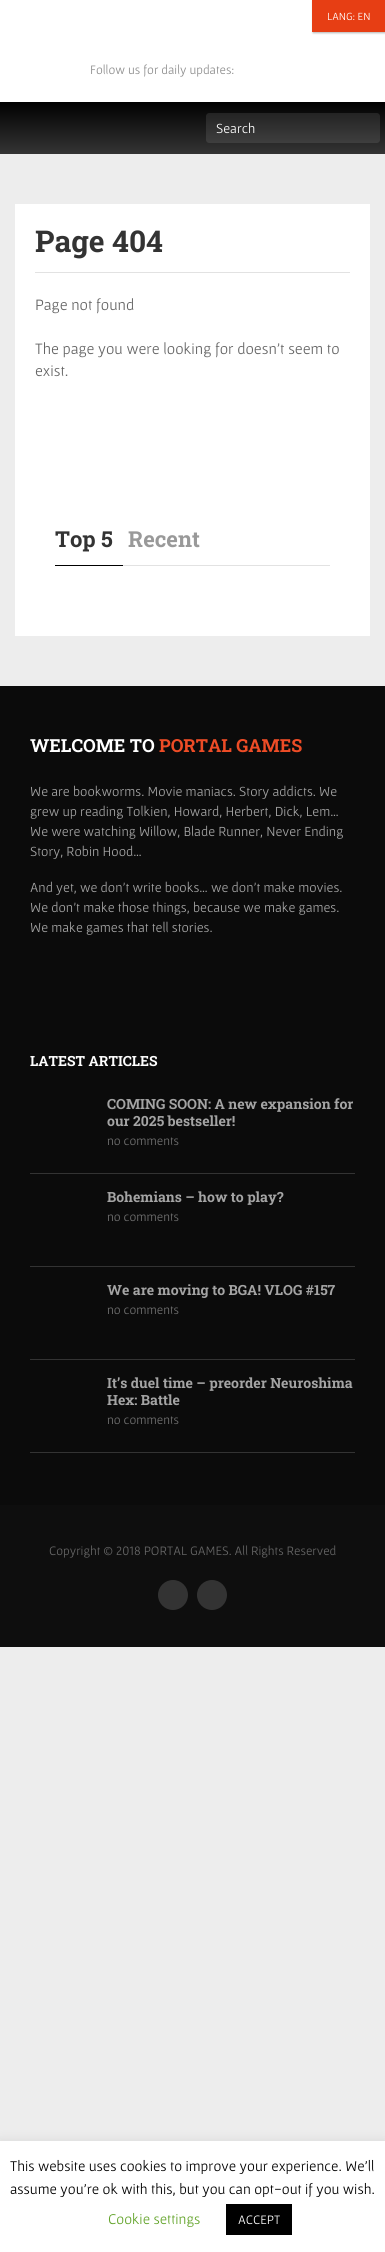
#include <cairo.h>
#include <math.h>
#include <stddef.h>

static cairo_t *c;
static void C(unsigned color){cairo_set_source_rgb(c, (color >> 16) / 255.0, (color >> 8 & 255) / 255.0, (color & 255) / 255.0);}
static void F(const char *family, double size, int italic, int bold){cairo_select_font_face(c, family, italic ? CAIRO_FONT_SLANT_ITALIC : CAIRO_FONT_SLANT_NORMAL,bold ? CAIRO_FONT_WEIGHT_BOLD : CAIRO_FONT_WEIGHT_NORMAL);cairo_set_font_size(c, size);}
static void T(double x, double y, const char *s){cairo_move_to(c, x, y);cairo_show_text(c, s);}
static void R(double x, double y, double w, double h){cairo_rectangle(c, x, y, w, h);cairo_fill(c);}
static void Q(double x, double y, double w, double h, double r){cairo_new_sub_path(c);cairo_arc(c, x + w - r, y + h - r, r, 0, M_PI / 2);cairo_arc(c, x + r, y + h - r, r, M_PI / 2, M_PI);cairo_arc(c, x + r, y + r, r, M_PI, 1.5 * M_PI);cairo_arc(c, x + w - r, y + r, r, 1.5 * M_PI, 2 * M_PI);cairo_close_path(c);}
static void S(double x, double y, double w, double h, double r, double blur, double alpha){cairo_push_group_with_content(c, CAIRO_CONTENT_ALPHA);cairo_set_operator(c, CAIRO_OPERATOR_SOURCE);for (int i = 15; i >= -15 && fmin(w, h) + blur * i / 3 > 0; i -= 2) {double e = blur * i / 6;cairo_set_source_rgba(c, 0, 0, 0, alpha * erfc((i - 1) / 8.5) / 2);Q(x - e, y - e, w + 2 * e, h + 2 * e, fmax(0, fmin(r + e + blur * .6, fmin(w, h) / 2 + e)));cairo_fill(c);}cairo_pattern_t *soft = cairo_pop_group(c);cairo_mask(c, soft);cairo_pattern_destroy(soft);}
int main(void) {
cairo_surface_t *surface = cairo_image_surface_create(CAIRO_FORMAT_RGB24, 385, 2252);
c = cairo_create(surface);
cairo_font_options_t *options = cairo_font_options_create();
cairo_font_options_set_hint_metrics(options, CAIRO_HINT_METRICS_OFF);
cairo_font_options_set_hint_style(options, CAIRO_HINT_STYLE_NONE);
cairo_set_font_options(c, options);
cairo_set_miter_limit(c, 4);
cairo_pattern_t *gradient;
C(0xededed);
cairo_paint(c);
C(0xffffff);
R(0,0,385,102);
C(0x000000);
S(313,1,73,32,0,1,.3);
C(0xe73e14);
R(312,0,73,32);
F("Gafata",11,0,0);
C(0xffffff);
T(327,20,"LANG: EN");
F("Gafata",13,0,0);
C(0x8c8c8c);
T(90,74,"Follow us for daily updates:");
gradient = cairo_pattern_create_linear(193,102,193,154);
cairo_pattern_add_color_stop_rgba(gradient,0,0,0,0,1);
cairo_pattern_add_color_stop_rgba(gradient,1,0.204,0.204,0.204,1);
cairo_set_source(c,gradient);
cairo_pattern_destroy(gradient);
R(0,102,385,52);
cairo_set_source_rgba(c,1,1,1,0.1);
cairo_new_path(c);
cairo_move_to(c,209,113);
cairo_line_to(c,346,113);
cairo_line_to(c,346,143);
cairo_line_to(c,209,143);
cairo_curve_to(c,207.5,143,206,141.5,206,140);
cairo_line_to(c,206,116);
cairo_curve_to(c,206,114.5,207.5,113,209,113);
cairo_close_path(c);
cairo_fill(c);
F("Gafata",14,0,0);
C(0xffffff);
T(216,133,"Search");
cairo_set_source_rgba(c,1,1,1,0.1);
cairo_new_path(c);
cairo_move_to(c,346,113);
cairo_line_to(c,377,113);
cairo_curve_to(c,378.5,113,380,114.5,380,116);
cairo_line_to(c,380,140);
cairo_curve_to(c,380,141.5,378.5,143,377,143);
cairo_line_to(c,346,143);
cairo_close_path(c);
cairo_fill(c);
C(0xffffff);
R(15,204,355,432);
C(0xe2e2e2);
R(35,272,315,1);
F("Roboto Slab",30,0,1);
C(0x333333);
T(35,252,"Page 404");
F("Gafata",16,0,0);
C(0x666666);
T(35,310,"Page not found");
T(35,354,"The page you were looking for doesn’t seem to");
T(35,376,"exist.");
C(0xe2e2e2);
R(123,565,207,1);
C(0x000000);
R(55,565,68,1);
F("Roboto Slab",22,0,1);
C(0x333333);
T(55,547,"Top 5");
C(0x999999);
T(128,547,"Recent");
C(0x0b0b0b);
R(0,686,385,819);
F("Roboto Slab",18,0,1);
C(0xffffff);
T(30,752,"WELCOME TO");
C(0xee4c26);
T(159,752,"PORTAL GAMES");
F("Gafata",14,0,0);
C(0xa4a4a4);
T(30,796,"We are bookworms. Movie maniacs. Story addicts. We");
T(30,816,"grew up reading Tolkien, Howard, Herbert, Dick, Lem…");
T(30,836,"We were watching Willow, Blade Runner, Never Ending");
T(30,856,"Story, Robin Hood…");
T(30,892,"And yet, we don’t write books… we don’t make movies.");
T(30,912,"We don’t make those things, because we make games.");
T(30,932,"We make games that tell stories.");
F("Roboto Slab",14,0,1);
C(0xffffff);
T(30,1066,"LATEST ARTICLES");
C(0x333333);
R(30,1173,325,1);
C(0xa4a4a4);
T(107,1109,"COMING SOON: A new expansion for");
T(107,1126,"our 2025 bestseller!");
F("Gafata",13,0,0);
C(0x717171);
T(107,1145,"no comments");
C(0x333333);
R(30,1266,325,1);
F("Roboto Slab",14,0,1);
C(0xa4a4a4);
T(107,1202,"Bohemians – how to play?");
F("Gafata",13,0,0);
C(0x717171);
T(107,1221,"no comments");
C(0x333333);
R(30,1359,325,1);
F("Roboto Slab",14,0,1);
C(0xa4a4a4);
T(107,1295,"We are moving to BGA! VLOG #157");
F("Gafata",13,0,0);
C(0x717171);
T(107,1314,"no comments");
C(0x333333);
R(30,1452,325,1);
F("Roboto Slab",14,0,1);
C(0xa4a4a4);
T(107,1388,"It’s duel time – preorder Neuroshima");
T(107,1405,"Hex: Battle");
F("Gafata",13,0,0);
C(0x717171);
T(107,1424,"no comments");
C(0x0e0e0e);
R(0,1505,385,142);
C(0x666666);
T(49,1555,"Copyright © 2018 PORTAL GAMES. All Rights Reserved");
C(0x333333);
cairo_new_path(c);
cairo_arc(c,173,1595,15,0,2 * M_PI);
cairo_fill(c);
cairo_arc(c,212,1595,15,0,2 * M_PI);
cairo_fill(c);
C(0xacabab);
S(0,2140,385,111,0,5,.3);
C(0xffffff);
R(0,2141,385,111);
F("Gafata",15,0,0);
C(0x000000);
T(10,2171,"This website uses cookies to improve your experience. We'll");
T(10,2194,"assume you're ok with this, but you can opt-out if you wish.");
C(0x62a329);
T(108,2224,"Cookie settings");
C(0x000000);
R(226,2204,66,31);
F("Gafata",13,0,0);
C(0xffffff);
T(238,2224,"ACCEPT");
cairo_surface_write_to_png(surface, "o.png");
cairo_font_options_destroy(options);
cairo_destroy(c);
cairo_surface_destroy(surface);
return 0;
}
